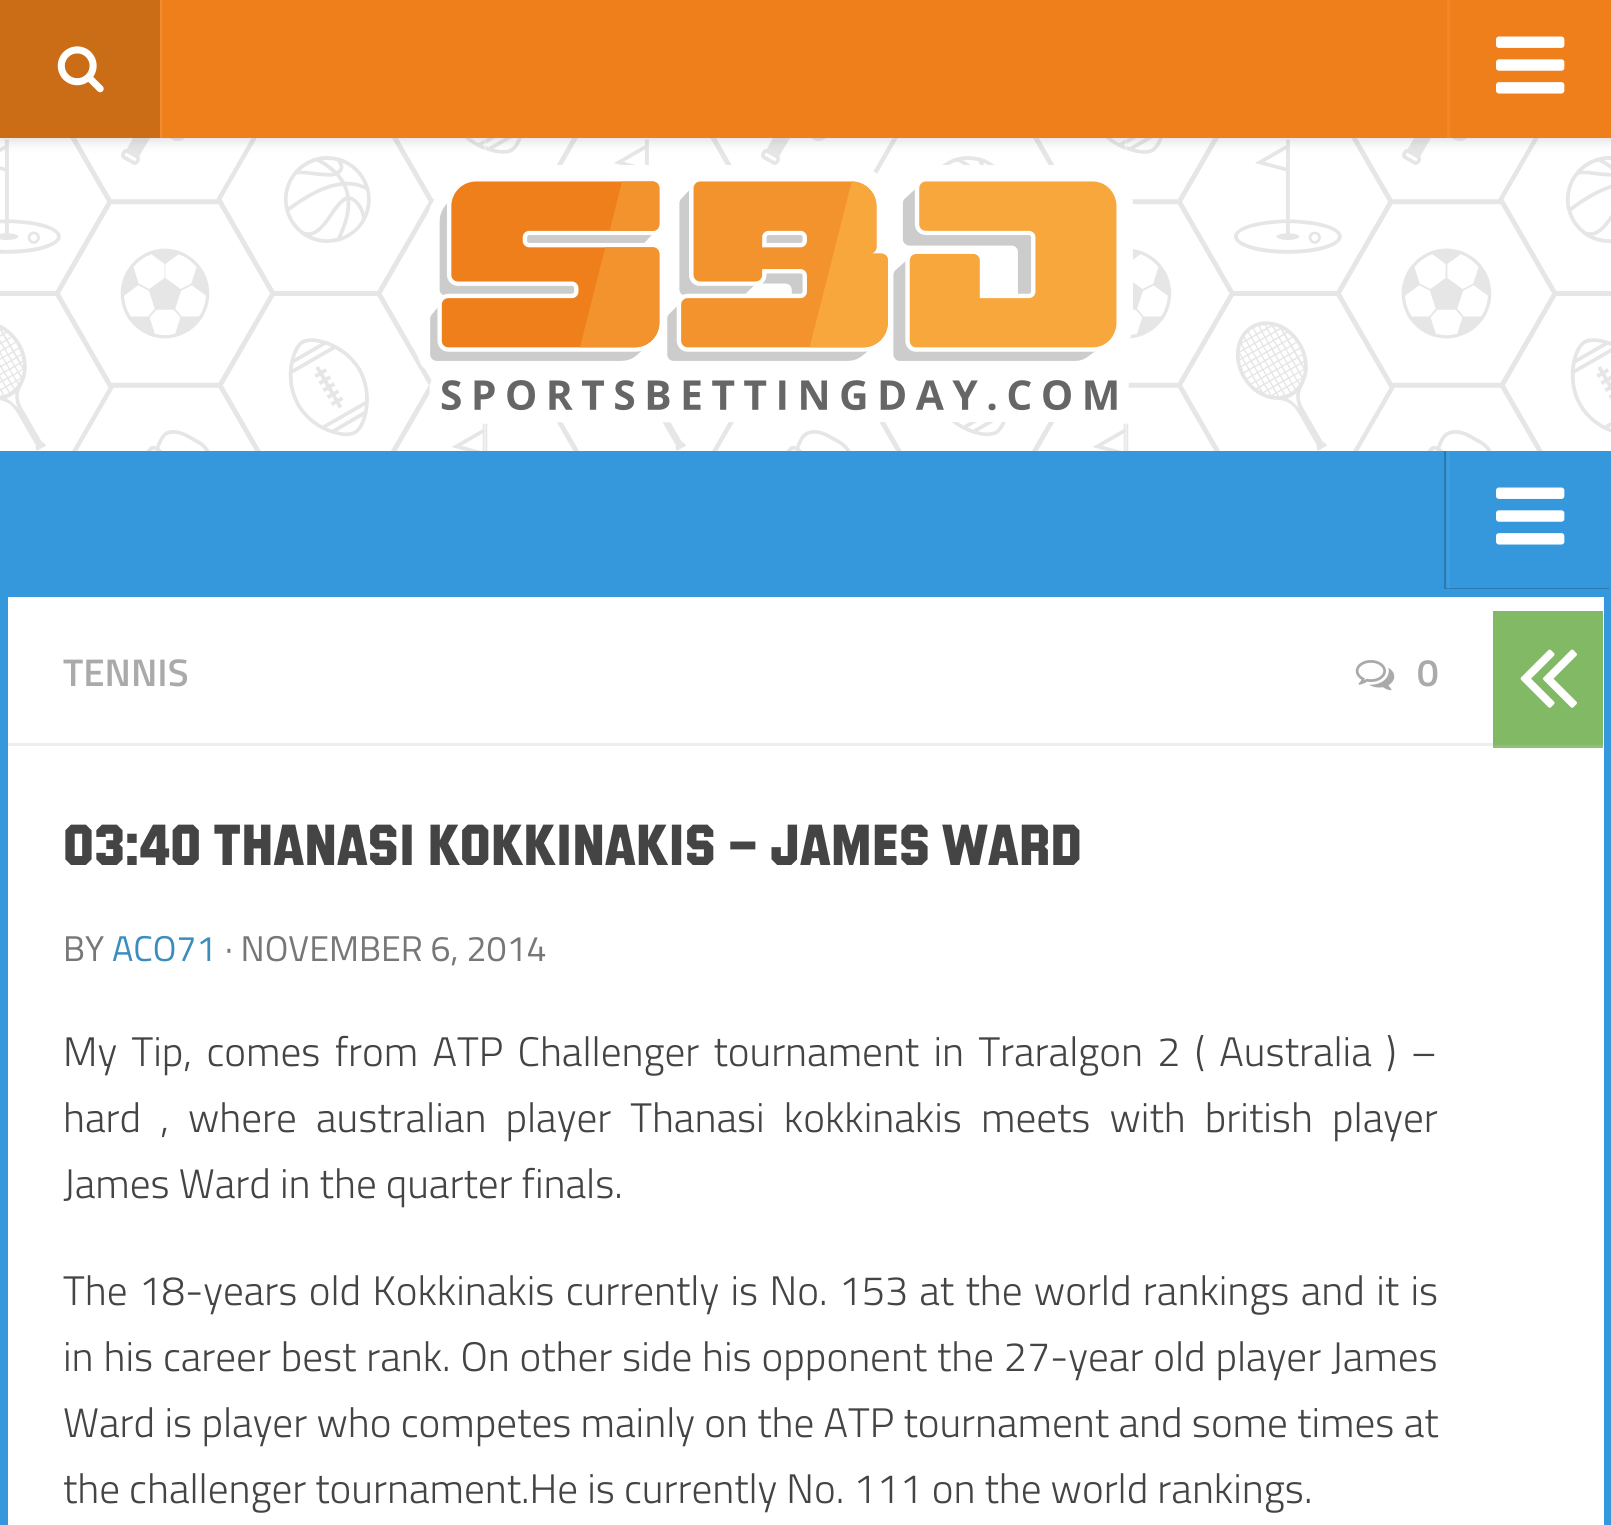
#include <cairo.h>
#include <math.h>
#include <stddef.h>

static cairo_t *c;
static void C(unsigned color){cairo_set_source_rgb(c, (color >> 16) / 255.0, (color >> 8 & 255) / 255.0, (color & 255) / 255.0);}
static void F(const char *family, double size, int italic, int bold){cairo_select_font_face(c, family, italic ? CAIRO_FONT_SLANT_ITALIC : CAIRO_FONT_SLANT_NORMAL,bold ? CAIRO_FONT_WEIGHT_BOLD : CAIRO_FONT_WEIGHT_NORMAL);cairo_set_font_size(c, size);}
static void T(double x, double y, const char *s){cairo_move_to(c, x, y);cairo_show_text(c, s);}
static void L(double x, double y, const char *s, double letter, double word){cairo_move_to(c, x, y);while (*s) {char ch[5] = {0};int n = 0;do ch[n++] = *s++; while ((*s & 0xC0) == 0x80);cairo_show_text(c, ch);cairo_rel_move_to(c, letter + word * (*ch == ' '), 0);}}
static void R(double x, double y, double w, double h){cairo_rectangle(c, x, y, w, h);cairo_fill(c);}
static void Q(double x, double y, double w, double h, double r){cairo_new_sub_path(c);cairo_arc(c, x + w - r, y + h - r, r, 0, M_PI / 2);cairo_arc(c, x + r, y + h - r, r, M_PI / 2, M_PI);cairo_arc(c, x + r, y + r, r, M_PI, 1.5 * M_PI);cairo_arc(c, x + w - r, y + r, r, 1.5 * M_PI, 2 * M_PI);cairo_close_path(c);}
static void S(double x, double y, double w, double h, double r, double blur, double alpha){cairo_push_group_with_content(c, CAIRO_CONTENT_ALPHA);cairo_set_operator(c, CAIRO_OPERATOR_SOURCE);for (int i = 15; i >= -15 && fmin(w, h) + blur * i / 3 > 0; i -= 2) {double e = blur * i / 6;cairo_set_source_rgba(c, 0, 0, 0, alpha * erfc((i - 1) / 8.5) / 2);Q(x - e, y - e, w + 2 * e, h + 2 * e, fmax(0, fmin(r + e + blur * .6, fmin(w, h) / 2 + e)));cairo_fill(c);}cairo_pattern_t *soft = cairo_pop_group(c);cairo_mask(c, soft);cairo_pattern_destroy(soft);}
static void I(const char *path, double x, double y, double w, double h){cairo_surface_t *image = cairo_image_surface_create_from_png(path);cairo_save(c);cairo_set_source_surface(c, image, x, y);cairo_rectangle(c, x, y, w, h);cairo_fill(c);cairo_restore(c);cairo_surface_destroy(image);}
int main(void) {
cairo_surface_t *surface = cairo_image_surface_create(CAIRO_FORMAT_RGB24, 1611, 1525);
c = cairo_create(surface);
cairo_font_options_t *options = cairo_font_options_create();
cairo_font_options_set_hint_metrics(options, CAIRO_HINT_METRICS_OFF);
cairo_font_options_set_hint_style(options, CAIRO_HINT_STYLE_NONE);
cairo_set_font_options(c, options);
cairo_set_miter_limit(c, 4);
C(0xffffff);
cairo_paint(c);
I("1.png",0,138,1611,313);
cairo_set_source_rgba(c,1,1,1,0.15);
cairo_new_path(c);
cairo_move_to(c,0,138);
cairo_line_to(c,0,140);
cairo_line_to(c,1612,140);
cairo_line_to(c,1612,3);
cairo_line_to(c,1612,138);
cairo_close_path(c);
cairo_fill(c);
C(0x000000);
S(0,0,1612,138,0,7,.2);
C(0xef7f1b);
R(162,0,1449,138);
C(0xf18c32);
cairo_new_path(c);
cairo_move_to(c,3,138);
cairo_line_to(c,162,138);
cairo_line_to(c,162,0);
cairo_line_to(c,160,0);
cairo_line_to(c,160,138);
cairo_close_path(c);
cairo_fill(c);
C(0xcb6c17);
R(0,0,160,138);
I("2.png",57,46,47,47);
C(0xf08729);
R(1447,0,3,138);
I("3.png",1496,36,69,58);
I("4.png",418,165,715,258);
C(0x3598dc);
R(0,451,1611,138);
C(0x2a7ab0);
cairo_new_path(c);
cairo_move_to(c,1444,451);
cairo_line_to(c,1444,589);
cairo_line_to(c,1609,589);
cairo_line_to(c,1609,588);
cairo_line_to(c,1446,588);
cairo_line_to(c,1446,451);
cairo_close_path(c);
cairo_fill(c);
cairo_set_source_rgba(c,1,1,1,0.05);
R(1447,451,3,138);
I("5.png",1496,487,69,58);
cairo_rectangle(c,4,593,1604,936);
C(0x3598dc);
cairo_set_line_width(c,8);
cairo_stroke(c);
C(0xeeeeee);
R(8,743,1485,3);
F("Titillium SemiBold",38.5,0,0);
C(0xaaaaaa);
T(63,686,"TENNIS");
I("6.png",1355,660,40,31);
T(1417,686,"0");
F("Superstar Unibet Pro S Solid",60.5,0,0);
C(0x444444);
T(63,865,"03:40 Thanasi Kokkinakis – James Ward");
F("Titillium",35.75,0,0);
C(0x777777);
T(63,961,"BY");
C(0x3b8dbd);
T(112,961,"ACO71");
C(0x777777);
T(225,961,"· NOVEMBER 6, 2014");
F("Titillium Light",41.25,0,0);
C(0x444444);
L(63,1066,"My Tip, comes from ATP Challenger tournament in Traralgon 2 ( Australia ) –",0,5.25);
L(63,1132,"hard , where australian player Thanasi kokkinakis meets with british player",0,10);
T(63,1198,"James Ward in the quarter finals.");
L(63,1305,"The 18-years old Kokkinakis currently is No. 153 at the world rankings and it is",0,2.25);
L(63,1371,"in his career best rank. On other side his opponent the 27-year old player James",0,.75);
L(63,1437,"Ward is player who competes mainly on the ATP tournament and some times at",0,.2);
T(63,1503,"the challenger tournament.He is currently No. 111 on the world rankings.");
C(0x82b965);
R(1493,611,110,134);
C(0x8fc074);
R(1493,745,110,3);
I("7.png",1520,649,57,59);
cairo_surface_write_to_png(surface, "o.png");
cairo_font_options_destroy(options);
cairo_destroy(c);
cairo_surface_destroy(surface);
return 0;
}
